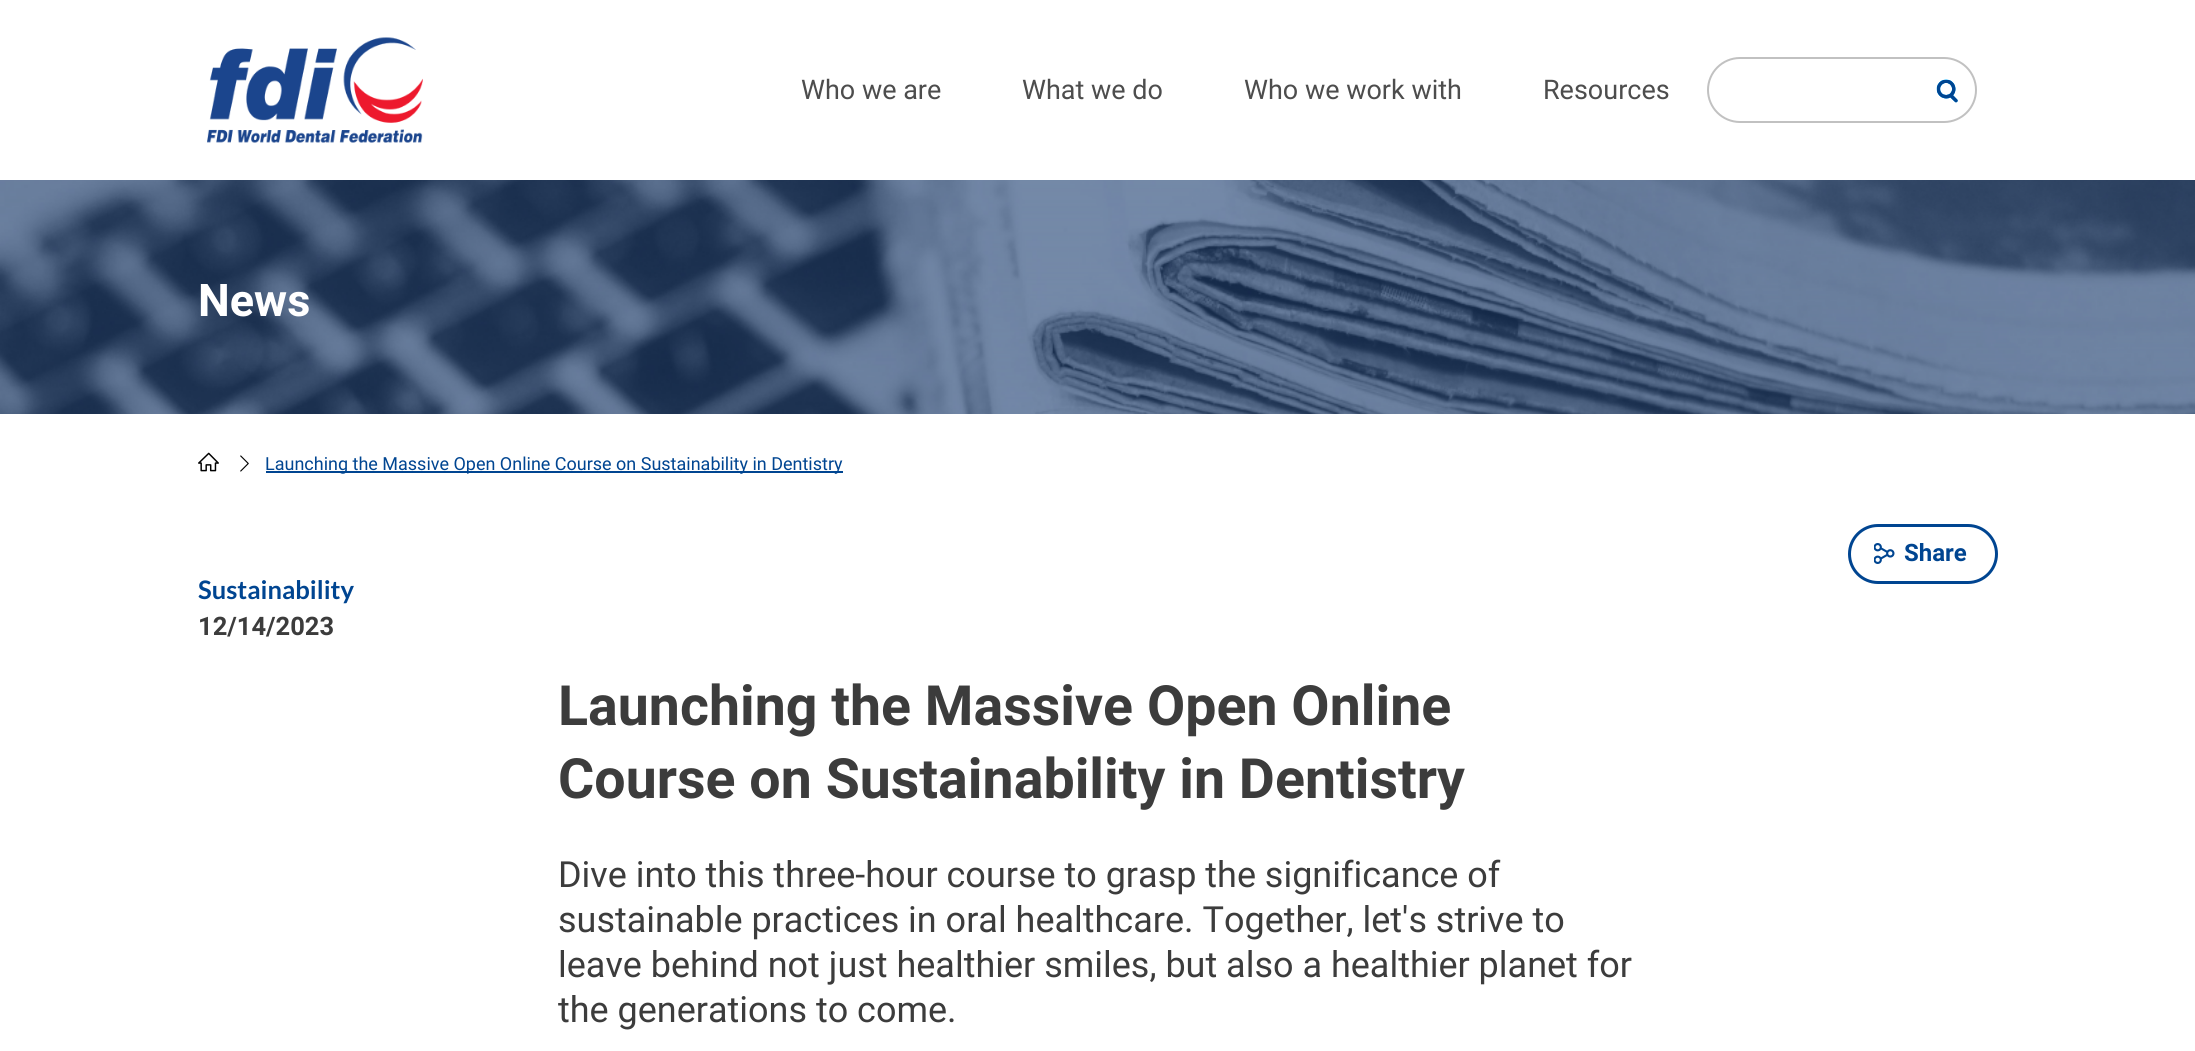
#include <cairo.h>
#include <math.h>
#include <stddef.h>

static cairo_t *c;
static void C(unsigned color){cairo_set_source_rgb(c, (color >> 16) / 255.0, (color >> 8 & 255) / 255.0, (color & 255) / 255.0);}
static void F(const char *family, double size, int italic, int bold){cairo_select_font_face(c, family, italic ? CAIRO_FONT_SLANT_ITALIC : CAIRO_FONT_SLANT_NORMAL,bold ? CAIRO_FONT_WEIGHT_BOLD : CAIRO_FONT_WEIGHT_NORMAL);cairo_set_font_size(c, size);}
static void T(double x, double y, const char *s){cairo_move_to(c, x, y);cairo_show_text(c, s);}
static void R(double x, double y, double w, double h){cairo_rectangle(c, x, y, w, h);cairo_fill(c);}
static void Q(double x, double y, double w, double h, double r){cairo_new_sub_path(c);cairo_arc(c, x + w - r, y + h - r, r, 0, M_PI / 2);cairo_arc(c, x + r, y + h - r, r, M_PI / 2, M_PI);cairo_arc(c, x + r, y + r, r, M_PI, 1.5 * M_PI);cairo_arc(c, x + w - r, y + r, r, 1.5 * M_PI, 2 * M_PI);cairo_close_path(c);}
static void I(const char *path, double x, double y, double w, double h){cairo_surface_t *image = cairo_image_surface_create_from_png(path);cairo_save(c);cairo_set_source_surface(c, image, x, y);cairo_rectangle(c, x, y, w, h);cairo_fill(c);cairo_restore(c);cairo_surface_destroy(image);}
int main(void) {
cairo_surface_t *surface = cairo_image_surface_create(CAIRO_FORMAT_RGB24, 2195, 1051);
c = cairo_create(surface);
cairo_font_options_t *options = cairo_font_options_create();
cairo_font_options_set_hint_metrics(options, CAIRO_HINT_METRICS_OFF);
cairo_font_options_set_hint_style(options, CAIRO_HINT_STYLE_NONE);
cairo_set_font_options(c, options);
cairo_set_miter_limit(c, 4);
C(0xffffff);
cairo_paint(c);
I("1.png",207,37,216,106);
F("Roboto",27,0,0);
C(0x4d4d4d);
T(801,99,"Who we are");
T(1022,99,"What we do");
T(1244,99,"Who we work with");
T(1543,99,"Resources");
Q(1708,58,268,64,32);
C(0xc1c1c1);
cairo_stroke(c);
I("2.png",1936,79,22,24);
I("3.png",0,180,2195,234);
F("Roboto",45,0,1);
C(0xffffff);
T(198,316,"News");
I("4.png",198,452,21,20);
I("5.png",240,455,9,17);
C(0x004591);
R(266,471,577,2);
F("Roboto",18,0,0);
T(265,470,"Launching the Massive Open Online Course on Sustainability in Dentistry");
Q(1849.5,525.5,147,57,28.5);
cairo_set_line_width(c,3);
cairo_stroke(c);
I("6.png",1874,543,21,21);
F("Roboto",24,0,1);
T(1904,561,"Share");
F("Lato",25.5,0,1);
T(198,599,"Sustainability");
F("Roboto",25.5,0,1);
C(0x3c3c3c);
T(198,635,"12/14/2023");
F("Roboto",55.5,0,1);
T(558,725,"Launching the Massive Open Online");
T(558,798,"Course on Sustainability in Dentistry");
F("Roboto",36,0,0);
T(558,887,"Dive into this three-hour course to grasp the significance of");
T(558,932,"sustainable practices in oral healthcare. Together, let's strive to");
T(558,977,"leave behind not just healthier smiles, but also a healthier planet for");
T(558,1022,"the generations to come.");
cairo_surface_write_to_png(surface, "o.png");
cairo_font_options_destroy(options);
cairo_destroy(c);
cairo_surface_destroy(surface);
return 0;
}
